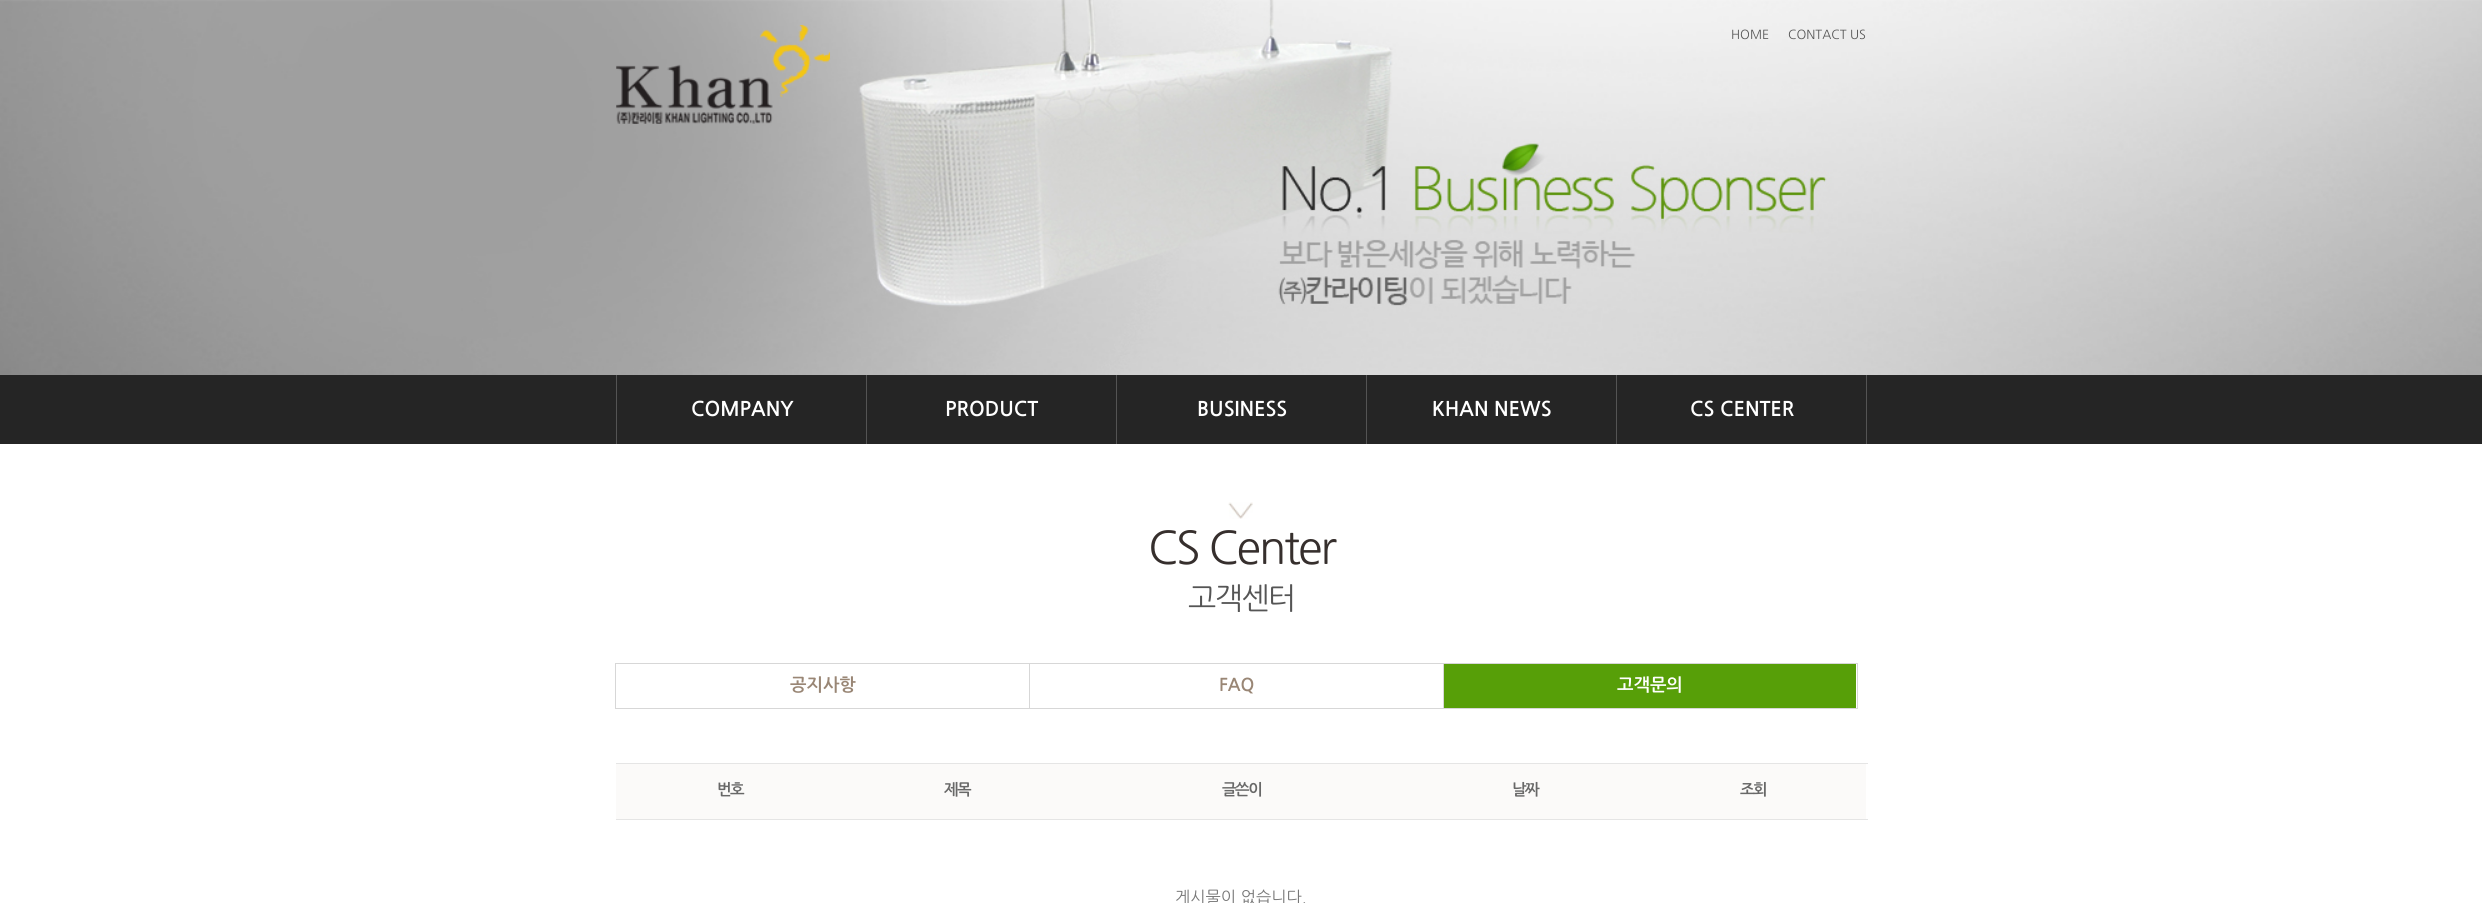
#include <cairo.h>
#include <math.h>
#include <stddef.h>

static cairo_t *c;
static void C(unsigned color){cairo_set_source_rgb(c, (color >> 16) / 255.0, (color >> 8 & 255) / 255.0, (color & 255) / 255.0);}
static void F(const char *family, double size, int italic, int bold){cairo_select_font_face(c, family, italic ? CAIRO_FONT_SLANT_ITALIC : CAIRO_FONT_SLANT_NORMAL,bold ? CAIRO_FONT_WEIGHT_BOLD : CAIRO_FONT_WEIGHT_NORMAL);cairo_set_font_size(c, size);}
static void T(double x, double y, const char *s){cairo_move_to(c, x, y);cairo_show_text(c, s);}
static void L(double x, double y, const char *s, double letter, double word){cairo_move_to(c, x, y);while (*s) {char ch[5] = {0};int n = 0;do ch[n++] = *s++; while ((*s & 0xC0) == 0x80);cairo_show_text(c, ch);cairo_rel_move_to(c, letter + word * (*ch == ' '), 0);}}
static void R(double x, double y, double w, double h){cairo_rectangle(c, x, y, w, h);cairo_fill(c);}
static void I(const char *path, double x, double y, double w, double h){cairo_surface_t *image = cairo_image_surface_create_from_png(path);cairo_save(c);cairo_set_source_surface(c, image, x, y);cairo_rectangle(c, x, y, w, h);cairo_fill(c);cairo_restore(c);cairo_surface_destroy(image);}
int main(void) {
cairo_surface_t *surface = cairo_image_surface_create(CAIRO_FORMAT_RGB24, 2482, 903);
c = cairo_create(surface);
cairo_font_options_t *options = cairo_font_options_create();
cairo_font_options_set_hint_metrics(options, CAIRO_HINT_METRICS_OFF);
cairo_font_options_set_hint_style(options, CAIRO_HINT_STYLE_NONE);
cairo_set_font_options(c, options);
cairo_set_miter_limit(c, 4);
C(0xffffff);
cairo_paint(c);
I("1.png",0,0,2482,375);
I("2.png",616,25,214,99);
F("NanumGothic",12.5,0,0);
C(0x555555);
T(1731,39,"HOME");
T(1788,39,"CONTACT US");
C(0x252525);
R(0,375,2482,69);
C(0x545454);
R(866,375,1,69);
R(616,375,1,69);
F("NanumGothic",20,0,1);
C(0xffffff);
T(691,416,"COMPANY");
C(0x545454);
R(1116,375,1,69);
C(0xffffff);
T(945,416,"PRODUCT");
C(0x545454);
R(1366,375,1,69);
C(0xffffff);
T(1197,416,"BUSINESS");
C(0x545454);
R(1616,375,1,69);
C(0xffffff);
T(1432,416,"KHAN NEWS");
C(0x545454);
R(1866,375,1,69);
C(0xffffff);
T(1690,416,"CS CENTER");
I("3.png",1228,502,25,17);
F("NanumGothic",45,0,0);
C(0x362f2d);
L(1148,564,"CS Center",-2.25,0);
F("NanumGothic",30,0,0);
C(0x555555);
L(1188,609,"고객센터",-1.5,0);
cairo_rectangle(c,615.5,663.5,414,45);
C(0xd7d7d7);
cairo_set_line_width(c,1);
cairo_stroke(c);
F("NanumGothic",17.5,0,1);
C(0x998675);
T(790,691,"공지사항");
cairo_rectangle(c,1029.5,663.5,414,45);
C(0xd7d7d7);
cairo_stroke(c);
C(0x998675);
T(1219,691,"FAQ");
cairo_rectangle(c,1443.5,663.5,414,45);
C(0xd7d7d7);
cairo_stroke(c);
C(0x579f08);
R(1444,664,412,44);
C(0xffffff);
T(1617,691,"고객문의");
C(0xfbfaf9);
R(616,764,1250,55);
F("NanumGothic",15.5,0,1);
C(0x686868);
L(717,795,"번호",-1.5,0);
L(944,795,"제목",-1.5,0);
L(1222,795,"글쓴이",-1.5,0);
L(1512,795,"날짜",-1.5,0);
C(0xe5e5e5);
R(616,763,1252,1);
R(616,819,1252,1);
C(0x686868);
L(1740,795,"조회",-1.5,0);
F("NanumGothic",16.25,0,0);
C(0x777777);
T(1175,903,"게시물이 없습니다.");
cairo_surface_write_to_png(surface, "o.png");
cairo_font_options_destroy(options);
cairo_destroy(c);
cairo_surface_destroy(surface);
return 0;
}
